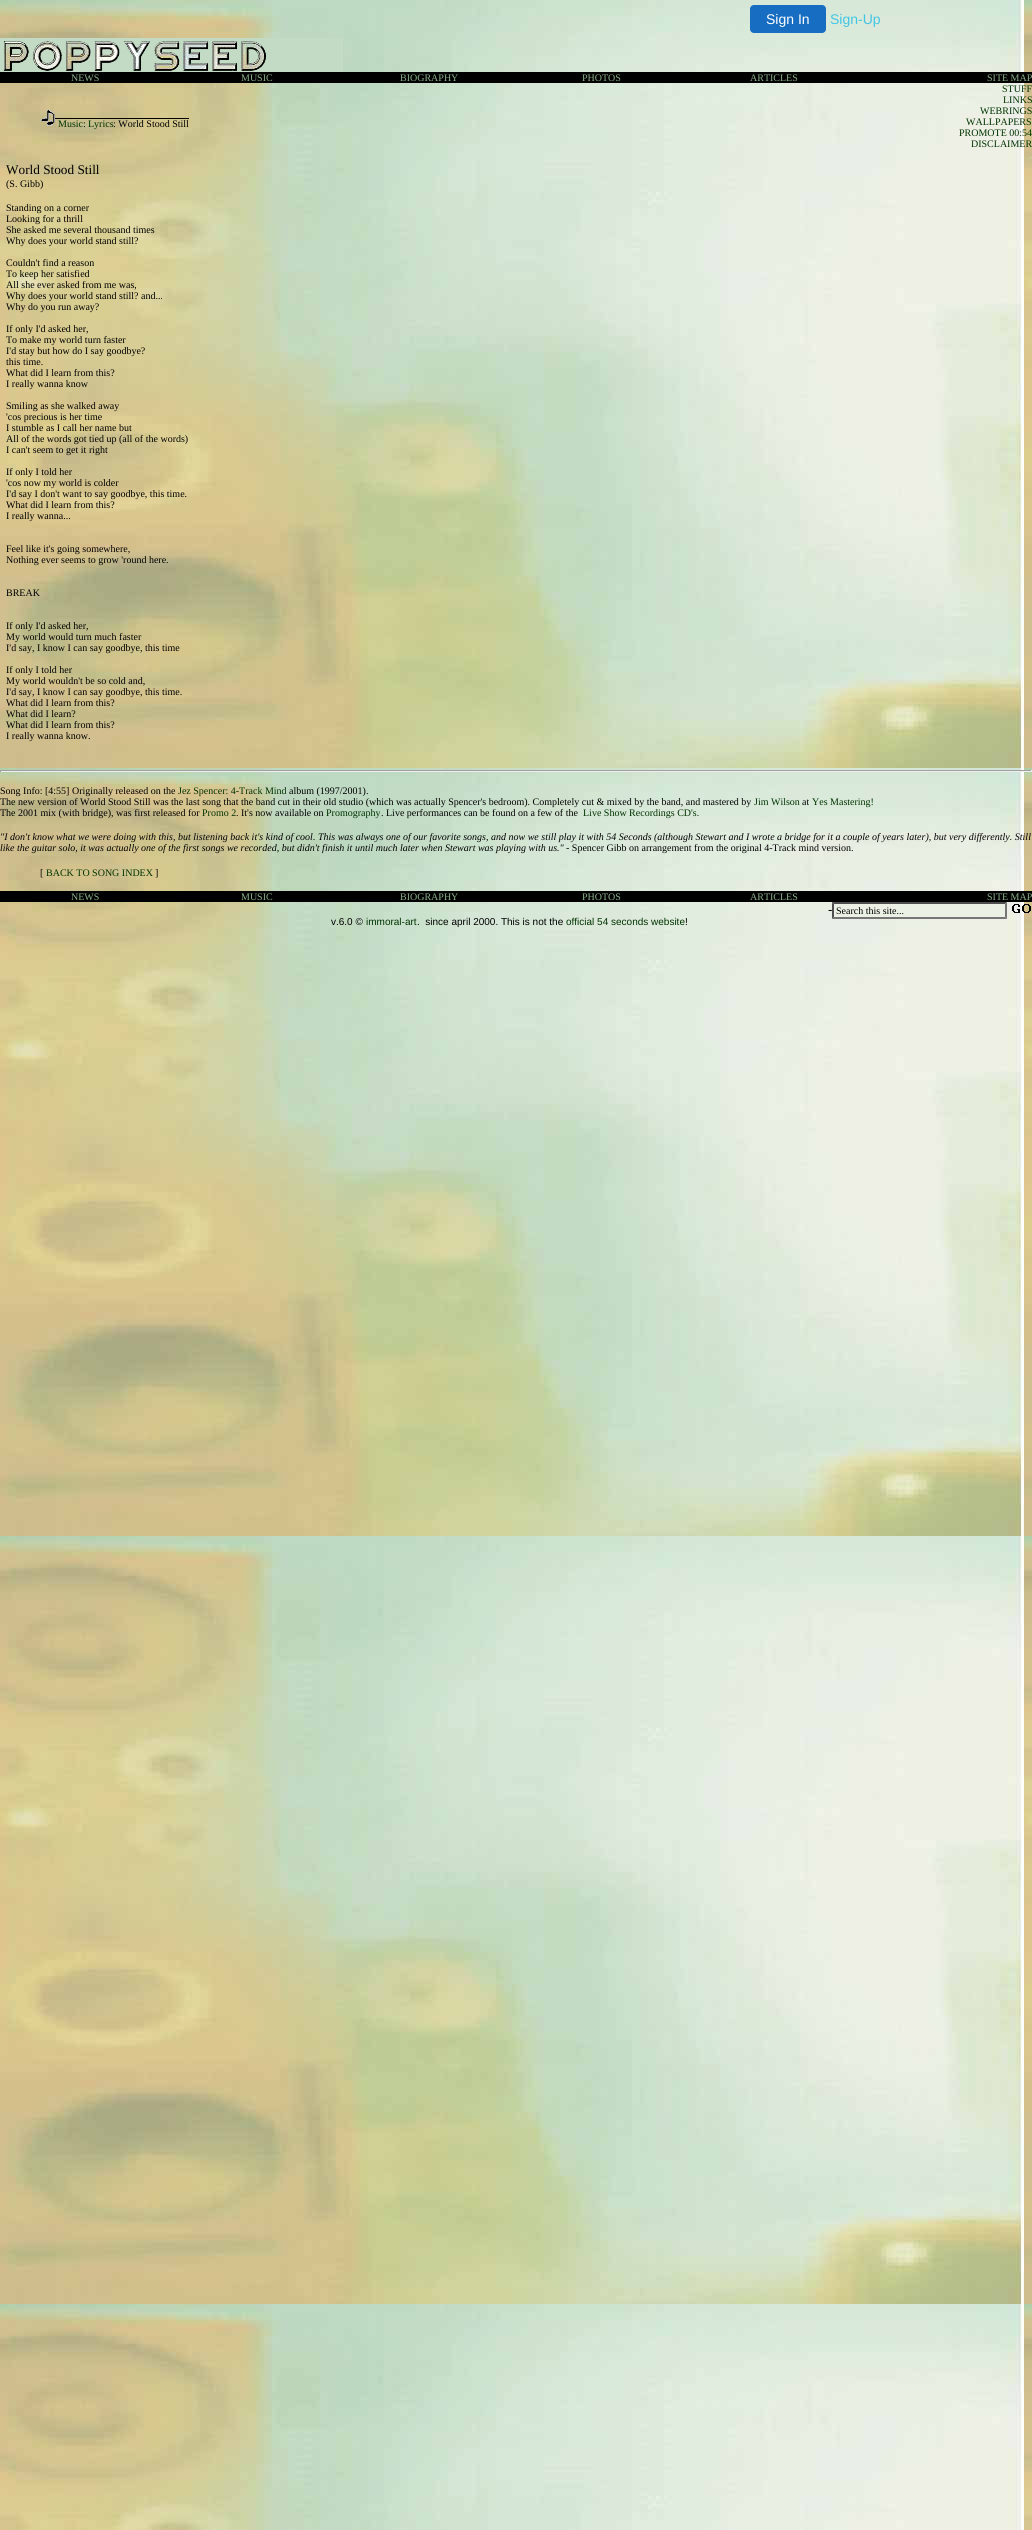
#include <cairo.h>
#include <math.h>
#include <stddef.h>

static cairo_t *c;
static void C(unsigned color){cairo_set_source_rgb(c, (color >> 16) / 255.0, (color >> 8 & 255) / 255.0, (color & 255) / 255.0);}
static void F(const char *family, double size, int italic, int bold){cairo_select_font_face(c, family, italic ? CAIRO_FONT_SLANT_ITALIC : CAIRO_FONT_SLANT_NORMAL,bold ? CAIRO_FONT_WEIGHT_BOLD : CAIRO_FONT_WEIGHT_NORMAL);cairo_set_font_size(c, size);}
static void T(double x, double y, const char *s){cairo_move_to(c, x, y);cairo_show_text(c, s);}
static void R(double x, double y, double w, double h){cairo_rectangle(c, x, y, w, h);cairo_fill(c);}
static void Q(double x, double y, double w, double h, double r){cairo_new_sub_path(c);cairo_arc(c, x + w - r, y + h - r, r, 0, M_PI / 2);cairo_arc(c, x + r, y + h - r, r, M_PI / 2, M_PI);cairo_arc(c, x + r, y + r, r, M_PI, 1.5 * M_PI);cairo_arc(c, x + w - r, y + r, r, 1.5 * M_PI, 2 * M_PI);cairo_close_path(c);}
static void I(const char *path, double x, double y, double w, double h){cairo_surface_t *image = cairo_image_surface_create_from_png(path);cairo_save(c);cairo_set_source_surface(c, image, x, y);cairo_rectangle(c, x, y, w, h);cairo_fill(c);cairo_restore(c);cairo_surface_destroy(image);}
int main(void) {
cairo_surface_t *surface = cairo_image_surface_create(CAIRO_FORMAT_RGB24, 1032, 2530);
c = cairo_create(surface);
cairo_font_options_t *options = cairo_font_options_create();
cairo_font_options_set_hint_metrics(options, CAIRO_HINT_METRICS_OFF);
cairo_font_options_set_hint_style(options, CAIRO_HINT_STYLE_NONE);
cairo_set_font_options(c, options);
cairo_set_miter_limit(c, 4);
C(0xffffff);
cairo_paint(c);
I("1.png",0,0,1032,2530);
C(0x166dc2);
Q(750.5,5.5,75,27,3.5);
cairo_fill_preserve(c);
cairo_set_line_width(c,1);
cairo_stroke(c);
F("Liberation Sans",14,0,0);
C(0xffffff);
T(766,24,"Sign In");
C(0x41c5e4);
T(830,24,"Sign-Up");
C(0xc3dbc4);
R(0,38,343,34);
I("2.png",4,41,263,30);
C(0x000000);
R(0,72,1032,11);
F("Liberation Serif",10,0,0);
C(0x8ab08a);
T(71,81,"NEWS");
T(241,81,"MUSIC");
T(400,81,"BIOGRAPHY");
T(582,81,"PHOTOS");
T(750,81,"ARTICLES");
T(987,81,"SITE MAP");
I("3.png",40,109,15,17);
C(0x003300);
T(58,127,"Music");
C(0x000000);
R(55,118,134,1);
T(83,127,":");
C(0x003300);
T(88,127,"Lyrics");
C(0x000000);
T(113,127,": World Stood Still");
C(0x003300);
T(1002,92,"STUFF");
T(1003,103,"LINKS");
T(980,114,"WEBRINGS");
T(966,125,"WALLPAPERS");
T(959,136,"PROMOTE 00:54");
T(971,147,"DISCLAIMER");
C(0xc3dbc4);
T(1030,158,".");
F("Liberation Serif",13.25,0,0);
C(0x000000);
T(6,174,"World Stood Still");
F("Liberation Serif",10,0,0);
T(6,187,"(S. Gibb)");
T(6,211,"Standing on a corner");
T(6,222,"Looking for a thrill");
T(6,233,"She asked me several thousand times");
T(6,244,"Why does your world stand still?");
T(6,266,"Couldn't find a reason");
T(6,277,"To keep her satisfied");
T(6,288,"All she ever asked from me was,");
T(6,299,"Why does your world stand still? and...");
T(6,310,"Why do you run away?");
T(6,332,"If only I'd asked her,");
T(6,343,"To make my world turn faster");
T(6,354,"I'd stay but how do I say goodbye?");
T(6,365,"this time.");
T(6,376,"What did I learn from this?");
T(6,387,"I really wanna know");
T(6,409,"Smiling as she walked away");
T(6,420,"'cos precious is her time");
T(6,431,"I stumble as I call her name but");
T(6,442,"All of the words got tied up (all of the words)");
T(6,453,"I can't seem to get it right");
T(6,475,"If only I told her");
T(6,486,"'cos now my world is colder");
T(6,497,"I'd say I don't want to say goodbye, this time.");
T(6,508,"What did I learn from this?");
T(6,519,"I really wanna...");
T(6,552,"Feel like it's going somewhere,");
T(6,563,"Nothing ever seems to grow 'round here.");
T(6,596,"BREAK");
T(6,629,"If only I'd asked her,");
T(6,640,"My world would turn much faster");
T(6,651,"I'd say, I know I can say goodbye, this time");
T(6,673,"If only I told her");
T(6,684,"My world wouldn't be so cold and,");
T(6,695,"I'd say, I know I can say goodbye, this time.");
T(6,706,"What did I learn from this?");
T(6,717,"What did I learn?");
T(6,728,"What did I learn from this?");
T(6,739,"I really wanna know.");
C(0x9f9f9f);
R(0,770,1032,1);
C(0xeeeeee);
R(1031,770,1,2);
R(0,771,1032,1);
C(0x9f9f9f);
R(0,770,1,2);
C(0x000000);
T(0,794,"Song Info: [4:55] Originally released on the");
C(0x003300);
T(178,794,"Jez Spencer: 4-Track Mind");
C(0x000000);
T(289,794,"album (1997/2001).");
T(0,805,"The new version of World Stood Still was the last song that the band cut in their old studio (which was actually Spencer's bedroom). Completely cut & mixed by the band, and mastered by");
C(0x003300);
T(754,805,"Jim Wilson");
C(0x000000);
T(802,805,"at");
C(0x003300);
T(812,805,"Yes Mastering!");
C(0x000000);
T(0,816,"The 2001 mix (with bridge), was first released for");
C(0x003300);
T(202,816,"Promo 2");
C(0x000000);
T(236,816,". It's now available on");
C(0x003300);
T(326,816,"Promography");
C(0x000000);
T(381,816,". Live performances can be found on a few of the");
C(0x003300);
T(583,816,"Live Show Recordings CD's.");
F("Liberation Serif",10,1,0);
C(0x000000);
T(0,840,"\"I don't know what we were doing with this, but listening back it's kind of cool. This was always one of our favorite songs, and now we still play it with 54 Seconds (although Stewart and I wrote a bridge for it a couple of years later), but very differently. Still");
T(0,851,"like the guitar solo, it was actually one of the first songs we recorded, but didn't finish it until much later when Stewart was playing with us.\"");
F("Liberation Serif",10,0,0);
T(566,851,"- Spencer Gibb on arrangement from the original 4-Track mind version.");
T(40,876,"[");
C(0x003300);
T(46,876,"BACK TO SONG INDEX");
C(0x000000);
T(155,876,"]");
R(0,891,1032,11);
C(0x8ab08a);
T(71,900,"NEWS");
T(241,900,"MUSIC");
T(400,900,"BIOGRAPHY");
T(582,900,"PHOTOS");
T(750,900,"ARTICLES");
T(987,900,"SITE MAP");
F("Liberation Sans",13.25,0,0);
C(0x000000);
T(828,914,"-");
C(0xebf2e5);
R(832,902,175,17);
C(0x4f4f4f);
cairo_new_path(c);
cairo_move_to(c,832,902);
cairo_line_to(c,1007,902);
cairo_line_to(c,1005,904);
cairo_line_to(c,834,904);
cairo_close_path(c);
cairo_fill(c);
C(0x767676);
cairo_new_path(c);
cairo_move_to(c,1007,902);
cairo_line_to(c,1007,919);
cairo_line_to(c,1005,917);
cairo_line_to(c,1005,904);
cairo_close_path(c);
cairo_fill(c);
cairo_new_path(c);
cairo_move_to(c,1007,919);
cairo_line_to(c,832,919);
cairo_line_to(c,834,917);
cairo_line_to(c,1005,917);
cairo_close_path(c);
cairo_fill(c);
C(0x4f4f4f);
cairo_new_path(c);
cairo_move_to(c,832,919);
cairo_line_to(c,832,902);
cairo_line_to(c,834,904);
cairo_line_to(c,834,917);
cairo_close_path(c);
cairo_fill(c);
F("Liberation Serif",10,0,0);
C(0x000000);
T(836,914,"Search this site...");
I("4.png",1012,904,19,9);
F("Liberation Sans",10,0,0);
C(0xc3dbc4);
T(685,914,".");
C(0x000000);
T(331,925,"v.6.0 ©");
C(0x003300);
T(366,925,"immoral-art");
C(0x000000);
T(417,925,".  since april 2000. This is not the");
C(0x003300);
T(566,925,"official 54 seconds website");
C(0x000000);
T(685,925,"!");
cairo_surface_write_to_png(surface, "o.png");
cairo_font_options_destroy(options);
cairo_destroy(c);
cairo_surface_destroy(surface);
return 0;
}
